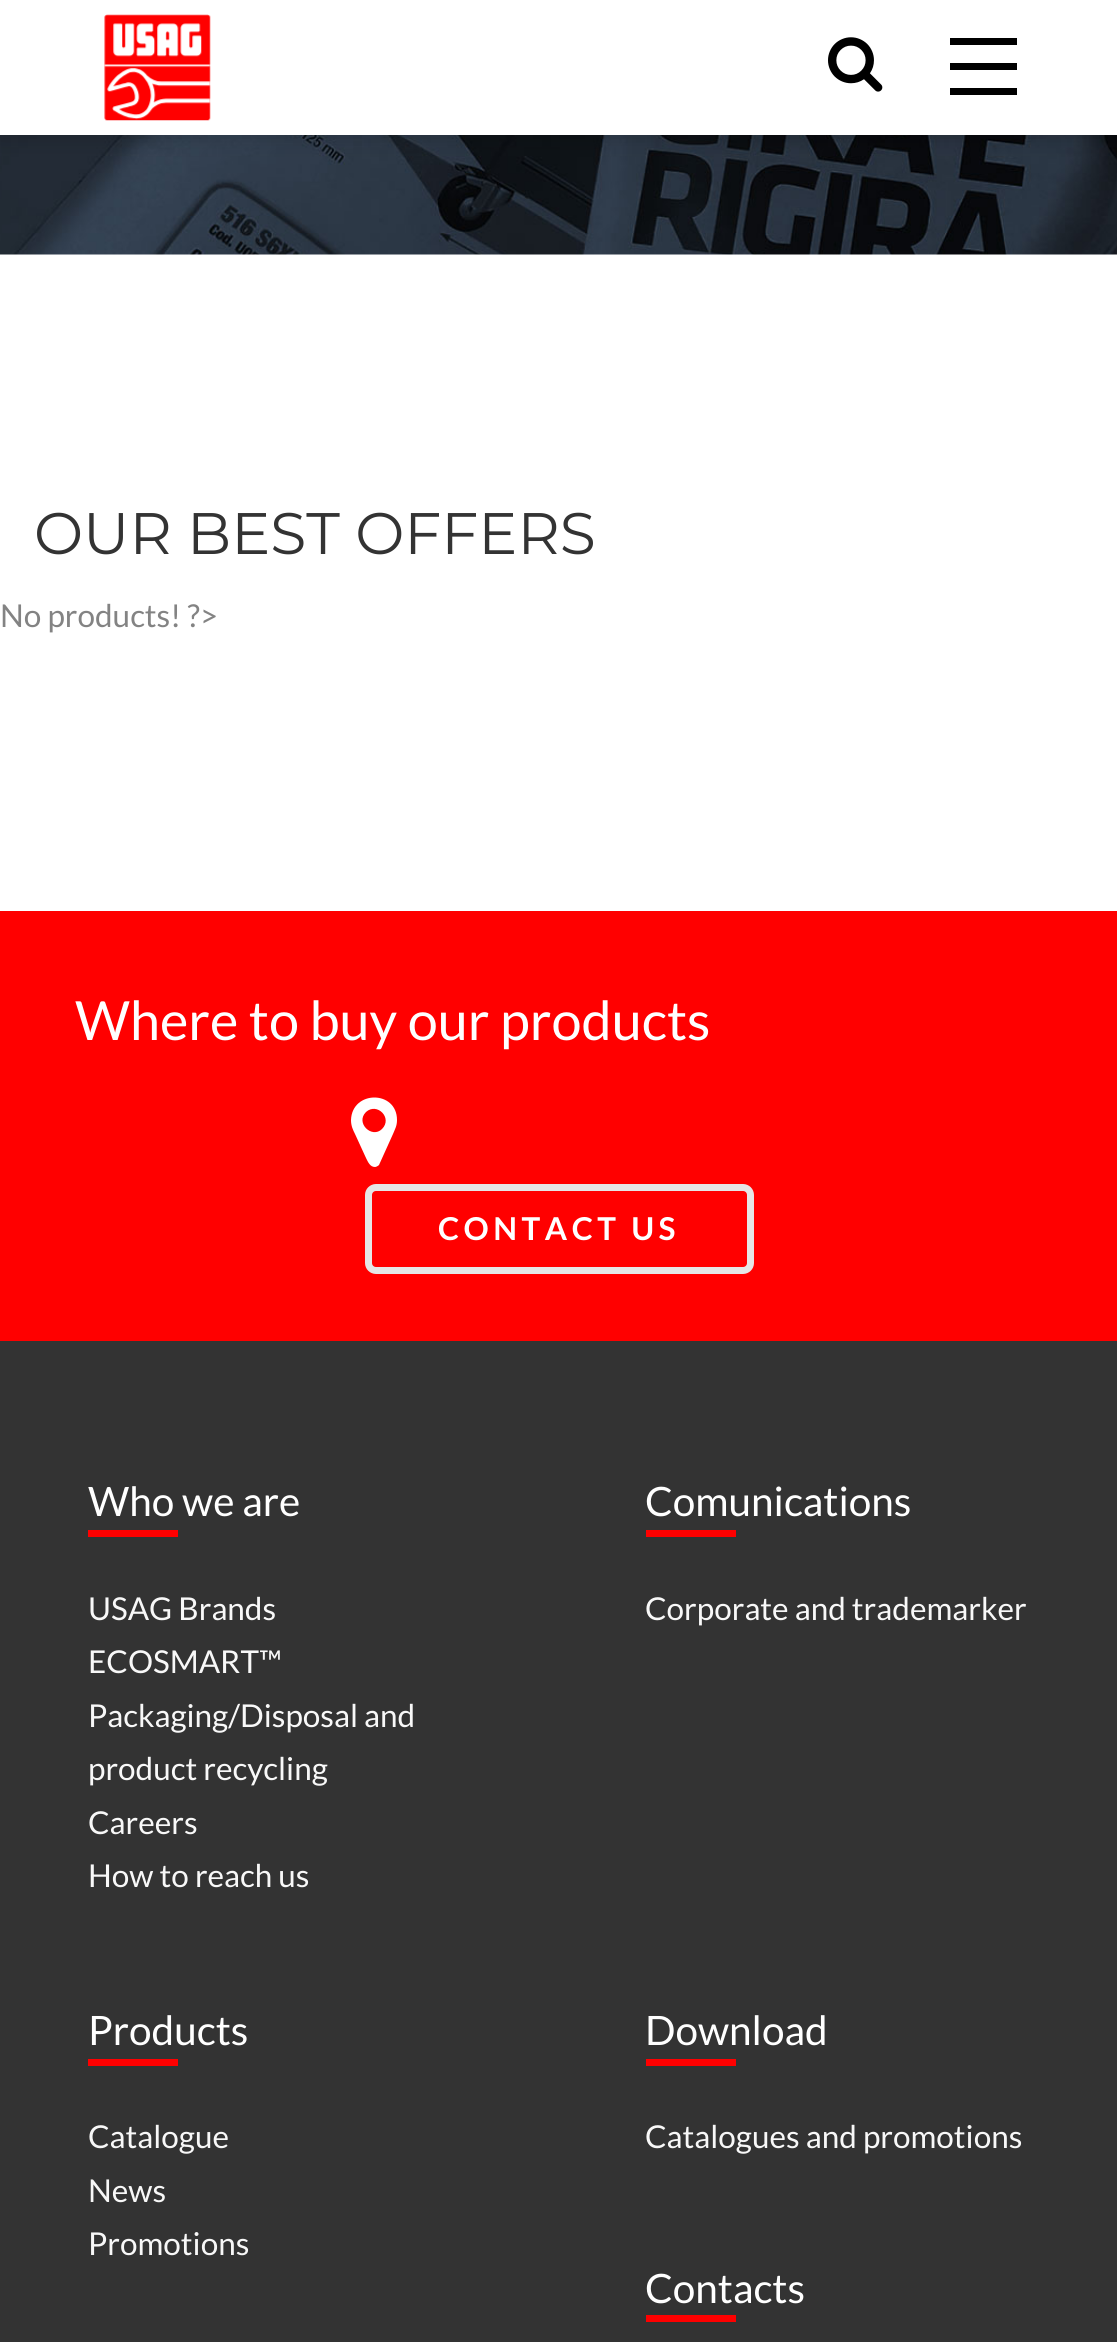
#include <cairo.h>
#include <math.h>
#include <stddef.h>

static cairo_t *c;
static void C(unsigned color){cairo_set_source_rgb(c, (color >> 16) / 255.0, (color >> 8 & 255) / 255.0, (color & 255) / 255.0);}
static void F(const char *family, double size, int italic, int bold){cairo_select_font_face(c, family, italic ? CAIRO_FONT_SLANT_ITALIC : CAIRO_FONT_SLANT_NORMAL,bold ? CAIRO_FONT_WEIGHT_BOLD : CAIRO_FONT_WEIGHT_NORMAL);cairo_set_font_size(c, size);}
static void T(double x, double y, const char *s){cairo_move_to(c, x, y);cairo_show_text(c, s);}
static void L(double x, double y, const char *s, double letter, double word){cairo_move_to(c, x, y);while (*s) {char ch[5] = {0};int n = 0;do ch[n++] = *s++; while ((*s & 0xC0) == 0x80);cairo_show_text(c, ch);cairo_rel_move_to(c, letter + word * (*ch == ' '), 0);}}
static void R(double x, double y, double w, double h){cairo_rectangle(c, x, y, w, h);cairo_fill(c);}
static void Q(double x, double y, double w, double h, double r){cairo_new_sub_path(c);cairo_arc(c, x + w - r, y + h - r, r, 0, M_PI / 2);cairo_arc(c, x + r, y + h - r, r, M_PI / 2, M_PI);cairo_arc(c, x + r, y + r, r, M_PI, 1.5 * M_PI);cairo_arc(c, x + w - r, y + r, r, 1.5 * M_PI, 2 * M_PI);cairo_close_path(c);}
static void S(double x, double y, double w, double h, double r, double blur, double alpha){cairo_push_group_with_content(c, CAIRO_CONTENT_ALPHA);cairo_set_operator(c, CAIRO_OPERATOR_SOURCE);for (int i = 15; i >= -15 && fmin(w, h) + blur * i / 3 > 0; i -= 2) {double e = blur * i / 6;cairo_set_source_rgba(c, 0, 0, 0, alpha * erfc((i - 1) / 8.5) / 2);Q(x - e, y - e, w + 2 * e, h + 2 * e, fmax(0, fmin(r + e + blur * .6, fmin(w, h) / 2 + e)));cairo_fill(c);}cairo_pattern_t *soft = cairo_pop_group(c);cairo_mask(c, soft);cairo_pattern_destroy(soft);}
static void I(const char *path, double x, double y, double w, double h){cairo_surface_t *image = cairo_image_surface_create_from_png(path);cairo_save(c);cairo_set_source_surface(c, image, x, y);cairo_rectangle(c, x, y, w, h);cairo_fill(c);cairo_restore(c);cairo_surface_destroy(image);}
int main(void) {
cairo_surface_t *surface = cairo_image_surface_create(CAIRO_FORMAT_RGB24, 1117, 2342);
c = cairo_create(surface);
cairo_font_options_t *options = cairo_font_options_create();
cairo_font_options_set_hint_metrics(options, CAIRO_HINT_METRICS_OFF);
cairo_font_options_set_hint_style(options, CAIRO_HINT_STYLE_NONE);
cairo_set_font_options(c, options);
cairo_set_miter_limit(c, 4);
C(0xffffff);
cairo_paint(c);
I("3.png",0,135,1117,120);
C(0x000000);
S(-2,-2,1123,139,0,11,.2);
C(0xffffff);
R(0,0,1117,135);
I("1.png",104,14,107,107);
I("2.png",828,37,55,55);
C(0x000000);
R(950,38,67,7);
R(950,63,67,7);
R(950,88,67,7);
F("Montserrat",58.5,0,0);
C(0x333333);
T(34,554,"OUR BEST OFFERS");
F("Lato",31.5,0,0);
C(0x838383);
T(0,627,"No products! ?>");
C(0xff0000);
R(0,911,1117,430);
F("Lato",54,0,0);
C(0xffffff);
T(75,1040,"Where to buy our products");
cairo_new_path(c);
cairo_move_to(c,382,1129);
cairo_curve_to(c,393,1118,377,1102,366,1112);
cairo_curve_to(c,355,1123,372,1139,382,1129);
cairo_close_path(c);
cairo_move_to(c,397,1120);
cairo_curve_to(c,397,1126,395,1129,393,1134);
cairo_line_to(c,379,1165);
cairo_curve_to(c,378,1166,376,1167,375,1167);
cairo_curve_to(c,370,1167,368,1162,366,1158);
cairo_line_to(c,355,1134);
cairo_curve_to(c,353,1130,351,1126,351,1120);
cairo_curve_to(c,352,1090,397,1090,397,1120);
cairo_close_path(c);
cairo_fill(c);
Q(368.5,1187.5,382,83,7.5);
C(0xe6e6e6);
cairo_set_line_width(c,7);
cairo_stroke(c);
F("Lato",31.5,0,1);
C(0xffffff);
L(438,1240,"CONTACT US",4.5,0);
C(0x333333);
R(0,1341,1117,1001);
F("Lato",40.5,0,0);
C(0xffffff);
T(88,1516,"Who we are");
C(0xff0000);
R(88,1530,90,7);
F("Lato",31.5,0,0);
C(0xf8f8f8);
T(88,1620,"USAG Brands");
T(88,1673,"ECOSMART™");
T(88,1727,"Packaging/Disposal and");
T(88,1780,"product recycling");
T(88,1834,"Careers");
T(88,1887,"How to reach us");
F("Lato",40.5,0,0);
C(0xffffff);
T(645,1516,"Comunications");
C(0xff0000);
R(646,1530,90,7);
F("Lato",31.5,0,0);
C(0xf8f8f8);
T(645,1620,"Corporate and trademarker");
F("Lato",40.5,0,0);
C(0xffffff);
T(88,2045,"Products");
C(0xff0000);
R(88,2059,90,7);
F("Lato",31.5,0,0);
C(0xf8f8f8);
T(88,2148,"Catalogue");
T(88,2202,"News");
T(88,2255,"Promotions");
F("Lato",40.5,0,0);
C(0xffffff);
T(645,2045,"Download");
C(0xff0000);
R(646,2059,90,7);
F("Lato",31.5,0,0);
C(0xf8f8f8);
T(645,2148,"Catalogues and promotions");
F("Lato",40.5,0,0);
C(0xffffff);
T(645,2303,"Contacts");
C(0xff0000);
R(646,2315,90,7);
cairo_surface_write_to_png(surface, "o.png");
cairo_font_options_destroy(options);
cairo_destroy(c);
cairo_surface_destroy(surface);
return 0;
}
